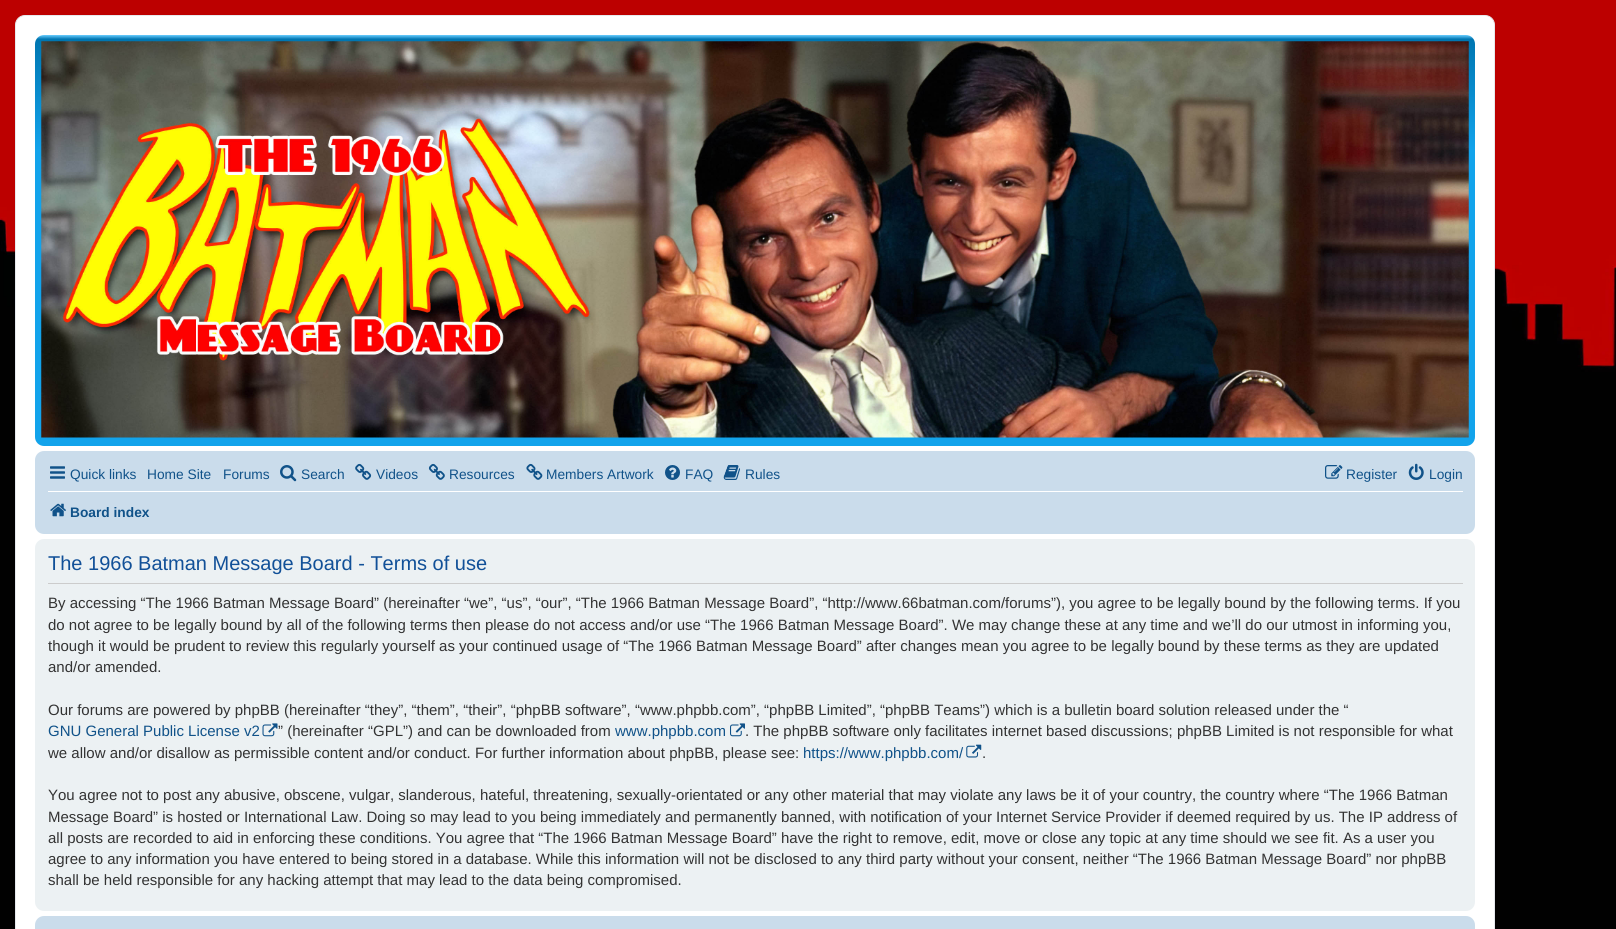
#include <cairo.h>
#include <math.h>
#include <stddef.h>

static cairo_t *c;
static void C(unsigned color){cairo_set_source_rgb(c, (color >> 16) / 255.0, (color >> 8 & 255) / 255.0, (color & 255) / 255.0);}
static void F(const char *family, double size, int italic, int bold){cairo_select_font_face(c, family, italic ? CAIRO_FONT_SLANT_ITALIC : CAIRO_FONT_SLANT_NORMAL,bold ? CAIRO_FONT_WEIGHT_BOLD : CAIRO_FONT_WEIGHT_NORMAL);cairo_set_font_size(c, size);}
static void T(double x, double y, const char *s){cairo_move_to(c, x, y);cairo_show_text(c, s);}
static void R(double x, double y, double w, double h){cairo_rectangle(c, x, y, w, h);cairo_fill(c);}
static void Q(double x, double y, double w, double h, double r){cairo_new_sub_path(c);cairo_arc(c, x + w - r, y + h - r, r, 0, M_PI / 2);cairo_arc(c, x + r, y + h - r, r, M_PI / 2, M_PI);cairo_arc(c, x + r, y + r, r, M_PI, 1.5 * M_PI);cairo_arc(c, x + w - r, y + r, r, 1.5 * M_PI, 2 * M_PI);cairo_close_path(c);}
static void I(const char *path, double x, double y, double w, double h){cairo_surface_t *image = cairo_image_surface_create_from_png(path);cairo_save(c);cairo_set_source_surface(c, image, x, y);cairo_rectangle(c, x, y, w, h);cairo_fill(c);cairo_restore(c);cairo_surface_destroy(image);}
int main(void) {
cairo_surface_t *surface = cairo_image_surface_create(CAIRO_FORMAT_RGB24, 1616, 929);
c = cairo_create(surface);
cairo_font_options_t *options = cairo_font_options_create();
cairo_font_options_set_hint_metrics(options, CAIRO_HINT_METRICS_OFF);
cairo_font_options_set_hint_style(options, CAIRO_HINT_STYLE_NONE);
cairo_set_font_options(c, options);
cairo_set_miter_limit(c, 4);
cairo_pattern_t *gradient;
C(0xffffff);
cairo_paint(c);
I("1.png",1615,0,1,929);
I("2.png",0,0,1616,929);
C(0xffffff);
Q(15.5,15.5,1479,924,9.5);
cairo_fill_preserve(c);
C(0xe6e9ed);
cairo_set_line_width(c,1);
cairo_stroke(c);
gradient = cairo_pattern_create_linear(755,35,755,446);
cairo_pattern_add_color_stop_rgba(gradient,0,0.416,0.808,1,1);
cairo_pattern_add_color_stop_rgba(gradient,.01,0,0.463,0.694,1);
cairo_pattern_add_color_stop_rgba(gradient,.28,0.071,0.639,0.922,1);
cairo_pattern_add_color_stop_rgba(gradient,1,0.071,0.639,0.922,1);
cairo_set_source(c,gradient);
cairo_pattern_destroy(gradient);
Q(35,35,1440,411,9);
cairo_fill(c);
I("3.png",41,41,1428,397);
C(0xcadceb);
Q(35,451,1440,83,9);
cairo_fill(c);
I("4.png",50,466,15,13);
F("Liberation Sans",13.75,0,0);
C(0x105289);
T(70,479,"Quick links");
T(147,479,"Home Site");
T(223,479,"Forums");
I("5.png",280,465,17,17);
T(301,479,"Search");
I("6.png",355,463,17,17);
T(376,479,"Videos");
I("7.png",428,463,17,17);
T(449,479,"Resources");
I("8.png",526,463,17,17);
T(546,479,"Members Artwork");
I("9.png",665,465,15,15);
T(685,479,"FAQ");
I("10.png",723,465,17,15);
T(745,479,"Rules");
I("11.png",1325,465,18,14);
T(1346,479,"Register");
I("12.png",1408,463,16,17);
T(1429,479,"Login");
C(0xffffff);
R(48,491,1415,1);
I("13.png",50,503,16,14);
F("Liberation Sans",13.75,0,1);
C(0x105289);
T(70,517,"Board index");
C(0xecf1f3);
Q(35,539,1440,372,9);
cairo_fill(c);
C(0xcccccc);
R(48,583,1415,1);
F("Liberation Sans",20,0,0);
C(0x115098);
T(48,570,"The 1966 Batman Message Board - Terms of use");
F("Liberation Sans",15,0,0);
C(0x333333);
T(48,608,"By accessing “The 1966 Batman Message Board” (hereinafter “we”, “us”, “our”, “The 1966 Batman Message Board”, “http://www.66batman.com/forums”), you agree to be legally bound by the following terms. If you");
T(48,630,"do not agree to be legally bound by all of the following terms then please do not access and/or use “The 1966 Batman Message Board”. We may change these at any time and we’ll do our utmost in informing you,");
T(48,651,"though it would be prudent to review this regularly yourself as your continued usage of “The 1966 Batman Message Board” after changes mean you agree to be legally bound by these terms as they are updated");
T(48,672,"and/or amended.");
T(48,715,"Our forums are powered by phpBB (hereinafter “they”, “them”, “their”, “phpBB software”, “www.phpbb.com”, “phpBB Limited”, “phpBB Teams”) which is a bulletin board solution released under the “");
C(0x105289);
T(48,736,"GNU General Public License v2");
I("14.png",262,723,16,14);
C(0x333333);
T(278,736,"” (hereinafter “GPL”) and can be downloaded from");
C(0x105289);
T(615,736,"www.phpbb.com");
I("15.png",730,723,15,14);
C(0x333333);
T(745,736,". The phpBB software only facilitates internet based discussions; phpBB Limited is not responsible for what");
T(48,758,"we allow and/or disallow as permissible content and/or conduct. For further information about phpBB, please see:");
C(0x105289);
T(803,758,"https://www.phpbb.com/");
I("16.png",966,744,16,14);
C(0x333333);
T(982,758,".");
T(48,800,"You agree not to post any abusive, obscene, vulgar, slanderous, hateful, threatening, sexually-orientated or any other material that may violate any laws be it of your country, the country where “The 1966 Batman");
T(48,822,"Message Board” is hosted or International Law. Doing so may lead to you being immediately and permanently banned, with notification of your Internet Service Provider if deemed required by us. The IP address of");
T(48,843,"all posts are recorded to aid in enforcing these conditions. You agree that “The 1966 Batman Message Board” have the right to remove, edit, move or close any topic at any time should we see fit. As a user you");
T(48,864,"agree to any information you have entered to being stored in a database. While this information will not be disclosed to any third party without your consent, neither “The 1966 Batman Message Board” nor phpBB");
T(48,885,"shall be held responsible for any hacking attempt that may lead to the data being compromised.");
C(0xcadceb);
Q(35,916,1440,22,9);
cairo_fill(c);
cairo_surface_write_to_png(surface, "o.png");
cairo_font_options_destroy(options);
cairo_destroy(c);
cairo_surface_destroy(surface);
return 0;
}
